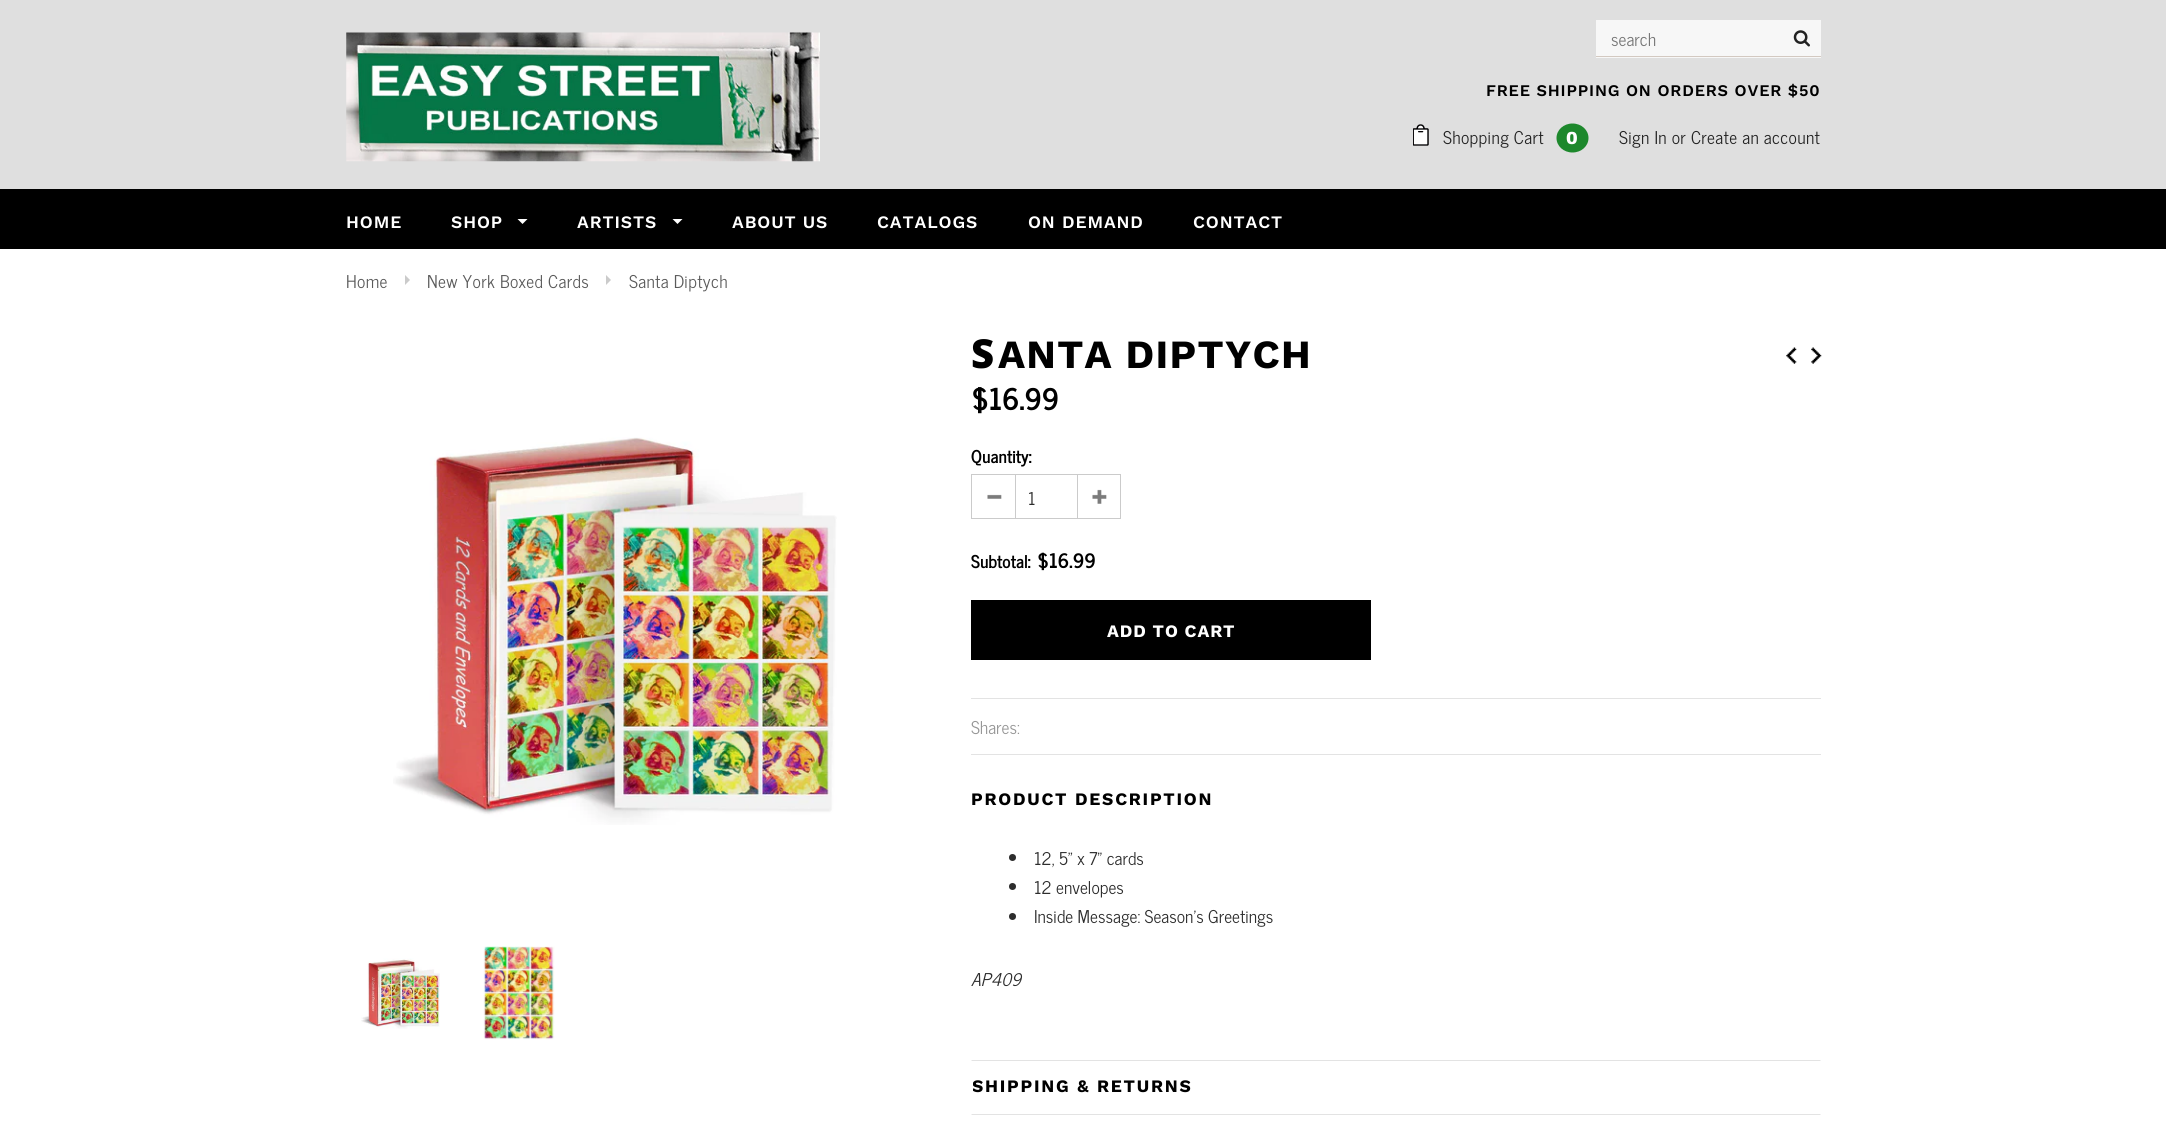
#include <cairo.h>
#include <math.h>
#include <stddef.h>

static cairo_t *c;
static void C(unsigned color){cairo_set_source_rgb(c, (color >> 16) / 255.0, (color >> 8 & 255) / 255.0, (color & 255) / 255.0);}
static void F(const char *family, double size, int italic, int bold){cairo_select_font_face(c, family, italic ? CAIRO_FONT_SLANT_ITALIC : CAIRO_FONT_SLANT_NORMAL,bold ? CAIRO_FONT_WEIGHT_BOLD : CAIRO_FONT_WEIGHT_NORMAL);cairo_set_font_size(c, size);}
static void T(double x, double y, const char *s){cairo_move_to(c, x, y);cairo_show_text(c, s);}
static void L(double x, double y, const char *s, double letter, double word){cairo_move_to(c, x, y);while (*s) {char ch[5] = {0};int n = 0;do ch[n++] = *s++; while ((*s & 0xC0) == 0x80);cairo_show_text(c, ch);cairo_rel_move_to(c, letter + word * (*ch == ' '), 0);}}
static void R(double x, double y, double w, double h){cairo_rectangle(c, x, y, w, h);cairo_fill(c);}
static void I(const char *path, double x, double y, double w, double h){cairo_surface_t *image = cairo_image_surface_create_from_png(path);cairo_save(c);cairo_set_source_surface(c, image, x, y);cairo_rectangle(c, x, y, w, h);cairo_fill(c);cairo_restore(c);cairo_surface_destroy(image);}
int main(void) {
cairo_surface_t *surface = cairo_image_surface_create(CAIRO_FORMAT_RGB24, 2166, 1132);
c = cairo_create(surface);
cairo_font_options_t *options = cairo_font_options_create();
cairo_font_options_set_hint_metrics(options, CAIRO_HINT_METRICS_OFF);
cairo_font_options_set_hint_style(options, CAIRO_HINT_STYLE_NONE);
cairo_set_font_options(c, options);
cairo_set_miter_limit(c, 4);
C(0xffffff);
cairo_paint(c);
C(0xdfdfdf);
R(0,0,2166,189);
C(0xf7f7f7);
R(1596,20,225,38);
C(0xd3c9c1);
R(1596,56,225,1);
F("News Cycle",17.5,0,0);
C(0x757575);
T(1611,46,"search");
I("1.png",1793,30,17,17);
I("2.png",346,32,474,130);
F("Work Sans SemiBold",16.25,0,0);
C(0x000000);
L(1486,96,"FREE SHIPPING ON ORDERS OVER $50",.8,0);
I("3.png",1413,124,16,22);
F("News Cycle",17.5,0,0);
C(0x222222);
L(1443,144,"Shopping Cart",.35,0);
C(0x1d882c);
cairo_new_path(c);
cairo_move_to(c,1572.5,123.5);
cairo_curve_to(c,1581.5,123.5,1588.5,130,1588.5,138);
cairo_curve_to(c,1588.5,146,1581.5,152.5,1572.5,152.5);
cairo_curve_to(c,1563.5,152.5,1556.5,146,1556.5,138);
cairo_curve_to(c,1556.5,130,1563.5,123.5,1572.5,123.5);
cairo_close_path(c);
cairo_fill(c);
F("Archivo Black",17.5,0,0);
C(0xffffff);
L(1566,144,"0",.35,0);
F("News Cycle",17.5,0,0);
C(0x222222);
L(1619,144,"Sign In or Create an account",.35,0);
C(0x000000);
R(0,189,2166,60);
F("Work Sans SemiBold",17.5,0,0);
C(0xffffff);
L(346,228,"HOME",.9,0);
L(451,228,"SHOP",.9,0);
cairo_new_path(c);
cairo_move_to(c,517.5,219);
cairo_line_to(c,527.5,219);
cairo_line_to(c,522.5,224);
cairo_close_path(c);
cairo_fill(c);
L(577,228,"ARTISTS",.9,0);
cairo_new_path(c);
cairo_move_to(c,672.5,219);
cairo_line_to(c,682.5,219);
cairo_line_to(c,677.5,224);
cairo_close_path(c);
cairo_fill(c);
L(732,228,"ABOUT US",.9,0);
L(877,228,"CATALOGS",.9,0);
L(1028,228,"ON DEMAND",.9,0);
L(1193,228,"CONTACT",.9,0);
F("News Cycle",17.5,0,0);
C(0x5a5a5a);
L(346,288,"Home",.35,0);
C(0xcbcbcb);
cairo_new_path(c);
cairo_move_to(c,405,285);
cairo_line_to(c,405,275);
cairo_line_to(c,410,280);
cairo_close_path(c);
cairo_fill(c);
C(0x5a5a5a);
L(427,288,"New York Boxed Cards",.35,0);
C(0xcbcbcb);
cairo_new_path(c);
cairo_move_to(c,606,285);
cairo_line_to(c,606,275);
cairo_line_to(c,611,280);
cairo_close_path(c);
cairo_fill(c);
C(0x5a5a5a);
L(629,288,"Santa Diptych",.35,0);
I("4.png",393,437,444,388);
I("5.png",361,958,79,71);
I("6.png",483,946,72,94);
F("Noto Sans Black",40,0,0);
C(0x000000);
L(971,368,"S",1.25,0);
F("Work Sans",40,0,1);
L(998,368,"ANTA DIPTYCH",1.25,0);
I("7.png",1786,347,11,17);
I("8.png",1811,347,11,17);
F("News Cycle",30,0,1);
T(971,410,"$16.99");
F("News Cycle",17.5,0,1);
T(971,463,"Quantity:");
I("9.png",987,494,15,5);
C(0xcbcbcb);
R(971,474,44,1);
R(971,518,44,1);
R(971,474,1,45);
cairo_rectangle(c,1015.5,474.5,62,44);
cairo_set_line_width(c,1);
cairo_stroke(c);
F("News Cycle",17.5,0,0);
C(0x2d2d2d);
T(1028,505,"1");
I("10.png",1092,489,15,15);
C(0xcbcbcb);
R(1078,474,43,1);
R(1120,474,1,45);
R(1078,518,43,1);
F("News Cycle",17.5,0,1);
C(0x000000);
T(971,568,"Subtotal:");
F("News Cycle",20,0,1);
T(1037,568,"$16.99");
R(971,600,400,60);
F("Work Sans",17.5,0,1);
C(0xffffff);
L(1107,637,"ADD TO CART",.9,0);
C(0xe3e3e3);
R(971,698,850,1);
R(971,754,850,1);
F("News Cycle",17.5,0,0);
C(0x969696);
T(971,734,"Shares:");
F("Work Sans",17.5,0,1);
C(0x000000);
L(971,805,"PRODUCT DESCRIPTION",1.75,0);
C(0x2d2d2d);
cairo_new_path(c);
cairo_arc(c,1012.5,857.5,3.5,0,2 * M_PI);
cairo_fill(c);
F("News Cycle",17.5,0,0);
T(1034,865,"12, 5\" x 7\" cards");
cairo_new_path(c);
cairo_arc(c,1012.5,886.5,3.5,0,2 * M_PI);
cairo_fill(c);
T(1034,894,"12 envelopes");
cairo_new_path(c);
cairo_arc(c,1012.5,916.5,3.5,0,2 * M_PI);
cairo_fill(c);
T(1034,923,"Inside Message: Season's Greetings");
F("News Cycle",17.5,1,0);
T(971,986,"AP409");
C(0xe3e3e3);
cairo_new_path(c);
cairo_move_to(c,971,1060);
cairo_line_to(c,1821,1060);
cairo_line_to(c,1820,1061);
cairo_line_to(c,972,1061);
cairo_close_path(c);
cairo_fill(c);
cairo_save(c);
cairo_rectangle(c,973,1061,847,52);
cairo_clip(c);
F("Work Sans",17.5,0,1);
C(0x000000);
L(972,1092,"SHIPPING & RETURNS",1.75,0);
cairo_restore(c);
cairo_new_path(c);
cairo_move_to(c,971,1114);
cairo_line_to(c,1821,1114);
cairo_line_to(c,1820,1115);
cairo_line_to(c,972,1115);
cairo_close_path(c);
cairo_fill(c);
cairo_surface_write_to_png(surface, "o.png");
cairo_font_options_destroy(options);
cairo_destroy(c);
cairo_surface_destroy(surface);
return 0;
}
